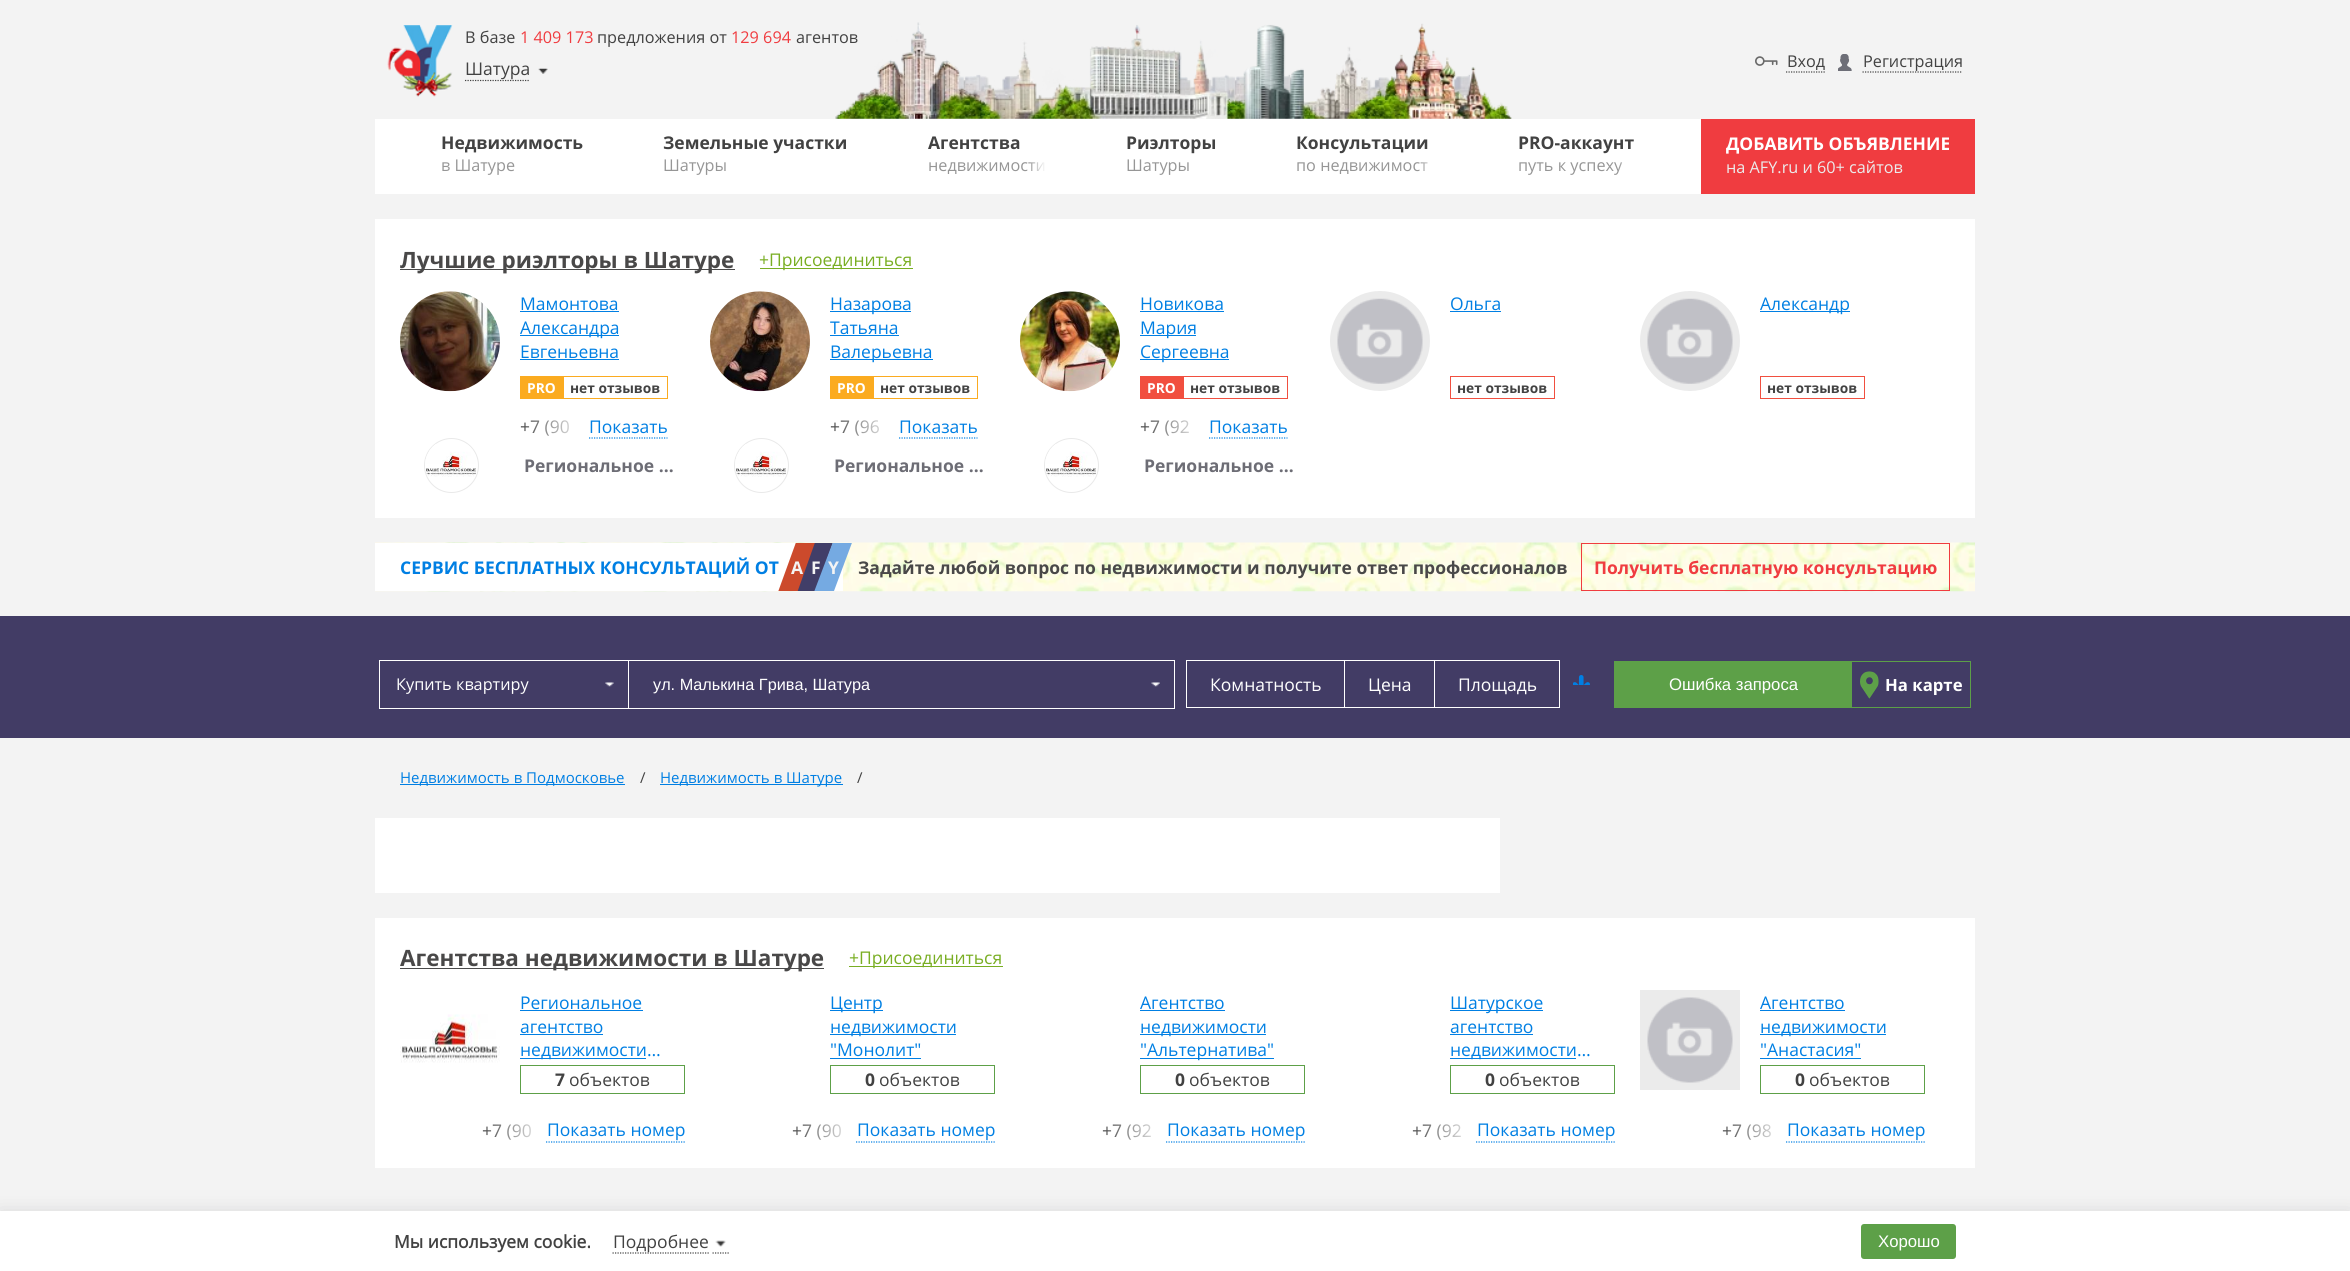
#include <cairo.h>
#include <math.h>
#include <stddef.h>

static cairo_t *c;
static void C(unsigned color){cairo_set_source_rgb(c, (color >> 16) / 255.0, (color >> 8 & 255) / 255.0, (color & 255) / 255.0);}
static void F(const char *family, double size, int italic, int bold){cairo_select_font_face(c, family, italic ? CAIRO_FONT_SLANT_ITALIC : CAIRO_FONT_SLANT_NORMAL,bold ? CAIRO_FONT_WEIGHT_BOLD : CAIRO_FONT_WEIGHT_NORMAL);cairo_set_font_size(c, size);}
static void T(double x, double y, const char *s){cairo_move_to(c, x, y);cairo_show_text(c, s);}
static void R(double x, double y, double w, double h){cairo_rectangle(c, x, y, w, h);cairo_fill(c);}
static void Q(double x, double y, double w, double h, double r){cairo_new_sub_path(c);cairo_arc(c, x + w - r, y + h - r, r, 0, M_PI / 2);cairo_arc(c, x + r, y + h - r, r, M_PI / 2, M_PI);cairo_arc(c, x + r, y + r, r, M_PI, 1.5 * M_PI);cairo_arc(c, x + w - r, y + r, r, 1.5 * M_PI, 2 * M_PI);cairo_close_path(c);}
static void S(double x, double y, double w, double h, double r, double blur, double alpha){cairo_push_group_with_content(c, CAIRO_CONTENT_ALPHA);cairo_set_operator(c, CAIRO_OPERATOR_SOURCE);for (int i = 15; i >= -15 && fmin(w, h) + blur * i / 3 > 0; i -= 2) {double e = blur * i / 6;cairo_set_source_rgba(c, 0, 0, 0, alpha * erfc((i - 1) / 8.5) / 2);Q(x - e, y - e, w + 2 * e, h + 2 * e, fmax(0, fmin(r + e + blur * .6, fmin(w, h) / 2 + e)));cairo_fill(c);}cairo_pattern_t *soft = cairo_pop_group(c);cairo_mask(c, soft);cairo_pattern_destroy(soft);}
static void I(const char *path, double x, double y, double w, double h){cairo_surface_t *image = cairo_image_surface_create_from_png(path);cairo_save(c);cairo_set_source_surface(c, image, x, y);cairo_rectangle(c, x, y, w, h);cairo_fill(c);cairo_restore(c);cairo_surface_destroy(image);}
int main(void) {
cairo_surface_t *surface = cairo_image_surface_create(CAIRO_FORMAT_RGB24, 2350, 1271);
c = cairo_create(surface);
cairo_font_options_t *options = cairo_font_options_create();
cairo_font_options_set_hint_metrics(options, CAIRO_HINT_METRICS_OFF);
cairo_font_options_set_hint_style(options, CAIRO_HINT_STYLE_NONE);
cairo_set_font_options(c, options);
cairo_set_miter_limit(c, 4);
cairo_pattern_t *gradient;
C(0xf3f3f3);
cairo_paint(c);
I("1.png",835,22,677,97);
I("2.png",387,25,66,72);
F("Open Sans",16.25,0,0);
C(0x424242);
T(465,43,"В базе");
C(0xf03c40);
T(520,43,"1 409 173");
C(0x424242);
T(597,43,"предложения от");
C(0xf03c40);
T(731,43,"129 694");
C(0x424242);
T(796,43,"агентов");
cairo_new_path(c);
cairo_move_to(c,465,80.5);
cairo_line_to(c,530,80.5);
cairo_set_line_width(c,1.2);
cairo_set_dash(c,(double[]){1.25,1.25},2,0);
cairo_stroke(c);
F("Open Sans",17.5,0,0);
T(465,75,"Шатура");
I("3.png",538,68,10,6);
I("4.png",1755,56,23,10);
F("Open Sans",16.25,0,0);
T(1787,67,"Вход");
cairo_new_path(c);
cairo_move_to(c,1786,72);
cairo_line_to(c,1825,72);
cairo_stroke(c);
I("5.png",1838,54,14,17);
T(1863,67,"Регистрация");
cairo_new_path(c);
cairo_move_to(c,1862.5,72);
cairo_line_to(c,1962.5,72);
cairo_stroke(c);
C(0xffffff);
R(375,119,1326,75);
F("Open Sans",17.5,0,1);
C(0x424242);
T(441,149,"Недвижимость");
F("Open Sans",16.25,0,0);
C(0x969696);
T(441,171,"в Шатуре");
F("Open Sans",17.5,0,1);
C(0x424242);
T(663,149,"Земельные участки");
F("Open Sans",16.25,0,0);
C(0x969696);
T(663,171,"Шатуры");
F("Open Sans",17.5,0,1);
C(0x424242);
T(928,149,"Агентства");
F("Open Sans",16.25,0,0);
C(0x969696);
T(928,171,"недвижимости");
gradient = cairo_pattern_create_linear(1028,165,1046,165);
cairo_pattern_add_color_stop_rgba(gradient,0,1,1,1,0);
cairo_pattern_add_color_stop_rgba(gradient,1,1,1,1,1);
cairo_set_source(c,gradient);
cairo_pattern_destroy(gradient);
R(1029,162,16,9);
F("Open Sans",17.5,0,1);
C(0x424242);
T(1126,149,"Риэлторы");
F("Open Sans",16.25,0,0);
C(0x969696);
T(1126,171,"Шатуры");
F("Open Sans",17.5,0,1);
C(0x424242);
T(1296,149,"Консультации");
F("Open Sans",16.25,0,0);
C(0x969696);
T(1296,171,"по недвижимост");
gradient = cairo_pattern_create_linear(1418,165,1439,165);
cairo_pattern_add_color_stop_rgba(gradient,0,1,1,1,0);
cairo_pattern_add_color_stop_rgba(gradient,1,1,1,1,1);
cairo_set_source(c,gradient);
cairo_pattern_destroy(gradient);
R(1419,162,9,9);
F("Open Sans",17.5,0,1);
C(0x424242);
T(1518,149,"PRO-аккаунт");
F("Open Sans",16.25,0,0);
C(0x969696);
T(1518,171,"путь к успеху");
gradient = cairo_pattern_create_linear(1618,165,1635,165);
cairo_pattern_add_color_stop_rgba(gradient,0,1,1,1,0);
cairo_pattern_add_color_stop_rgba(gradient,1,1,1,1,1);
cairo_set_source(c,gradient);
cairo_pattern_destroy(gradient);
R(1618,162,5,10);
C(0xf03c40);
R(1701,119,274,75);
F("Open Sans",17.5,0,1);
C(0xffffff);
T(1726,150,"ДОБАВИТЬ ОБЪЯВЛЕНИЕ");
F("Open Sans",16.25,0,0);
C(0xebebeb);
T(1726,173,"на AFY.ru и 60+ сайтов");
C(0xffffff);
R(375,219,1600,299);
C(0x4a4a4a);
R(400,269,335,1);
F("Open Sans",22.5,0,1);
C(0x494848);
T(400,268,"Лучшие риэлторы в Шатуре");
C(0x79ae23);
R(760,268,153,1);
F("Open Sans",17.5,0,0);
T(759,266,"+Присоединиться");
I("6.png",400,291,100,101);
C(0x007fe3);
T(520,310,"Мамонтова");
R(520,311,99,1);
R(520,335,99,1);
T(520,334,"Александра");
T(520,358,"Евгеньевна");
R(520,359,99,1);
C(0xfbab20);
R(520,376,43,23);
F("Open Sans",13.75,0,1);
C(0xffffff);
T(527,393,"PRO");
cairo_rectangle(c,563.5,376.5,104,22);
C(0xfbab20);
cairo_set_line_width(c,1);
cairo_set_dash(c,NULL,0,0);
cairo_stroke(c);
C(0x424242);
T(570,393,"нет отзывов");
F("Open Sans",17.5,0,0);
T(520,433,"+7 (90");
gradient = cairo_pattern_create_linear(520,426,585,426);
cairo_pattern_add_color_stop_rgba(gradient,0,1,1,1,0);
cairo_pattern_add_color_stop_rgba(gradient,1,1,1,1,1);
cairo_set_source(c,gradient);
cairo_pattern_destroy(gradient);
R(521,420,48,16);
C(0x007fe3);
T(589,433,"Показать");
cairo_new_path(c);
cairo_move_to(c,589,438);
cairo_line_to(c,667.5,438);
cairo_set_line_width(c,1.2);
cairo_set_dash(c,(double[]){1.25,1.25},2,0);
cairo_stroke(c);
cairo_arc(c,451.5,465.5,27,0,2 * M_PI);
C(0xe9e9e9);
cairo_set_line_width(c,1);
cairo_set_dash(c,NULL,0,0);
cairo_stroke(c);
I("7.png",425,444,51,33);
F("Open Sans",17.5,0,1);
C(0x6d6d75);
T(524,472,"Региональное …");
I("8.png",710,291,100,101);
C(0x007fe3);
R(830,311,81,1);
F("Open Sans",17.5,0,0);
T(830,310,"Назарова");
T(830,334,"Татьяна");
R(830,335,69,1);
R(830,359,103,1);
T(830,358,"Валерьевна");
C(0xfbab20);
R(830,376,43,23);
F("Open Sans",13.75,0,1);
C(0xffffff);
T(837,393,"PRO");
cairo_rectangle(c,873.5,376.5,104,22);
C(0xfbab20);
cairo_stroke(c);
C(0x424242);
T(880,393,"нет отзывов");
F("Open Sans",17.5,0,0);
T(830,433,"+7 (96");
gradient = cairo_pattern_create_linear(830,426,895,426);
cairo_pattern_add_color_stop_rgba(gradient,0,1,1,1,0);
cairo_pattern_add_color_stop_rgba(gradient,1,1,1,1,1);
cairo_set_source(c,gradient);
cairo_pattern_destroy(gradient);
R(831,420,48,16);
C(0x007fe3);
T(899,433,"Показать");
cairo_new_path(c);
cairo_move_to(c,899,438);
cairo_line_to(c,977.5,438);
cairo_set_line_width(c,1.2);
cairo_set_dash(c,(double[]){1.25,1.25},2,0);
cairo_stroke(c);
cairo_arc(c,761.5,465.5,27,0,2 * M_PI);
C(0xe9e9e9);
cairo_set_line_width(c,1);
cairo_set_dash(c,NULL,0,0);
cairo_stroke(c);
I("9.png",735,444,51,33);
F("Open Sans",17.5,0,1);
C(0x6d6d75);
T(834,472,"Региональное …");
I("10.png",1020,291,100,101);
F("Open Sans",17.5,0,0);
C(0x007fe3);
T(1140,310,"Новикова");
R(1140,311,84,1);
R(1140,335,56,1);
T(1140,334,"Мария");
R(1140,359,89,1);
T(1140,358,"Сергеевна");
C(0xf14f3f);
R(1140,376,43,23);
F("Open Sans",13.75,0,1);
C(0xffffff);
T(1147,393,"PRO");
cairo_rectangle(c,1183.5,376.5,104,22);
C(0xf14f3f);
cairo_stroke(c);
C(0x424242);
T(1190,393,"нет отзывов");
F("Open Sans",17.5,0,0);
T(1140,433,"+7 (92");
gradient = cairo_pattern_create_linear(1140,426,1205,426);
cairo_pattern_add_color_stop_rgba(gradient,0,1,1,1,0);
cairo_pattern_add_color_stop_rgba(gradient,1,1,1,1,1);
cairo_set_source(c,gradient);
cairo_pattern_destroy(gradient);
R(1141,420,48,16);
C(0x007fe3);
T(1209,433,"Показать");
cairo_new_path(c);
cairo_move_to(c,1209,438);
cairo_line_to(c,1287.5,438);
cairo_set_line_width(c,1.2);
cairo_set_dash(c,(double[]){1.25,1.25},2,0);
cairo_stroke(c);
cairo_arc(c,1071.5,465.5,27,0,2 * M_PI);
C(0xe9e9e9);
cairo_set_line_width(c,1);
cairo_set_dash(c,NULL,0,0);
cairo_stroke(c);
I("7.png",1045,444,51,33);
F("Open Sans",17.5,0,1);
C(0x6d6d75);
T(1144,472,"Региональное …");
C(0xebebeb);
cairo_new_path(c);
cairo_arc(c,1380,341,50,0,2 * M_PI);
cairo_fill(c);
I("11.png",1337,298,86,86);
F("Open Sans",17.5,0,0);
C(0x007fe3);
T(1450,310,"Ольга");
R(1450,311,51,1);
cairo_rectangle(c,1450.5,376.5,104,22);
C(0xf14f3f);
cairo_stroke(c);
F("Open Sans",13.75,0,1);
C(0x424242);
T(1457,393,"нет отзывов");
C(0xebebeb);
cairo_new_path(c);
cairo_arc(c,1690,341,50,0,2 * M_PI);
cairo_fill(c);
I("12.png",1647,298,86,86);
C(0x007fe3);
R(1760,311,90,1);
F("Open Sans",17.5,0,0);
T(1760,310,"Александр");
cairo_rectangle(c,1760.5,376.5,104,22);
C(0xf14f3f);
cairo_stroke(c);
F("Open Sans",13.75,0,1);
C(0x424242);
T(1767,393,"нет отзывов");
I("13.png",375,542,1600,50);
C(0xffffff);
R(375,543,468,48);
F("Open Sans",17.5,0,1);
C(0x007fe3);
T(400,574,"СЕРВИС БЕСПЛАТНЫХ КОНСУЛЬТАЦИЙ ОТ");
cairo_save(c);
cairo_rectangle(c,375,543,1600,48);
cairo_clip(c);
C(0xcc4a2c);
cairo_new_path(c);
cairo_move_to(c,799,534);
cairo_line_to(c,817,540);
cairo_line_to(c,796,599);
cairo_line_to(c,778,592);
cairo_close_path(c);
cairo_fill(c);
cairo_restore(c);
C(0xf4f4f4);
T(791,574,"A");
cairo_save(c);
cairo_rectangle(c,375,543,1600,48);
cairo_clip(c);
C(0x413e68);
cairo_new_path(c);
cairo_move_to(c,818,534);
cairo_line_to(c,834,540);
cairo_line_to(c,813,599);
cairo_line_to(c,797,593);
cairo_close_path(c);
cairo_fill(c);
cairo_restore(c);
T(811,574,"F");
cairo_save(c);
cairo_rectangle(c,375,543,1600,48);
cairo_clip(c);
C(0x75aae2);
cairo_new_path(c);
cairo_move_to(c,836,534);
cairo_line_to(c,853,540);
cairo_line_to(c,831,599);
cairo_line_to(c,814,592);
cairo_close_path(c);
cairo_fill(c);
cairo_restore(c);
T(828,574,"Y");
C(0x494848);
T(858,574,"Задайте любой вопрос по недвижимости и получите ответ профессионалов");
cairo_rectangle(c,1581.5,543.5,368,47);
C(0xf03c40);
cairo_stroke(c);
T(1594,574,"Получить бесплатную консультацию");
C(0x423c65);
R(0,616,2350,122);
cairo_rectangle(c,379.5,660.5,249,48);
C(0xffffff);
cairo_stroke(c);
F("Open Sans",16.25,0,0);
T(396,690,"Купить квартиру");
I("14.png",605,682,9,5);
cairo_rectangle(c,628.5,660.5,546,48);
cairo_stroke(c);
F("Liberation Sans",16.25,0,0);
T(653,690,"ул. Малькина Грива, Шатура");
I("15.png",1151,682,9,5);
cairo_rectangle(c,1186.5,660.5,158,47);
cairo_stroke(c);
F("Open Sans",17.5,0,0);
T(1210,691,"Комнатность");
cairo_rectangle(c,1344.5,660.5,90,47);
cairo_stroke(c);
T(1368,691,"Цена");
cairo_rectangle(c,1434.5,660.5,125,47);
cairo_stroke(c);
T(1458,691,"Площадь");
I("16.png",1573,675,17,10);
C(0x5da048);
R(1614,661,237,47);
F("Liberation Sans",16.75,0,0);
C(0xffffff);
T(1669,690,"Ошибка запроса");
cairo_rectangle(c,1851.5,661.5,119,46);
C(0x5da048);
cairo_stroke(c);
I("17.png",1860,671,19,28);
F("Open Sans",16.75,0,1);
C(0xffffff);
T(1885,691,"На карте");
C(0x007fe3);
R(400,784,225,1);
F("Open Sans",15,0,0);
T(400,783,"Недвижимость в Подмосковье");
C(0x424242);
T(640,783,"/");
C(0x007fe3);
R(660,784,183,1);
T(660,783,"Недвижимость в Шатуре");
C(0x424242);
T(857,783,"/");
C(0xffffff);
R(375,818,1125,75);
R(375,918,1600,250);
C(0x4a4a4a);
R(400,968,424,1);
F("Open Sans",22.5,0,1);
C(0x494848);
T(400,966,"Агентства недвижимости в Шатуре");
C(0x79ae23);
R(849,966,154,1);
F("Open Sans",17.5,0,0);
T(849,964,"+Присоединиться");
I("18.png",400,1014,100,49);
C(0x007fe3);
T(520,1009,"Региональное");
R(520,1010,123,1);
T(520,1033,"агентство");
R(520,1034,83,1);
R(520,1058,126,1);
T(520,1056,"недвижимости…");
cairo_rectangle(c,520.5,1065.5,164,28);
C(0x5da048);
cairo_stroke(c);
F("Open Sans",17.5,0,1);
C(0x424242);
T(555,1086,"7");
F("Open Sans",17.5,0,0);
T(569,1086,"объектов");
T(482,1137,"+7 (90");
gradient = cairo_pattern_create_linear(481,1131,546,1131);
cairo_pattern_add_color_stop_rgba(gradient,0,1,1,1,0);
cairo_pattern_add_color_stop_rgba(gradient,1,1,1,1,1);
cairo_set_source(c,gradient);
cairo_pattern_destroy(gradient);
R(483,1124,48,16);
cairo_new_path(c);
cairo_move_to(c,546,1142);
cairo_line_to(c,685,1142);
C(0x007fe3);
cairo_set_line_width(c,1.2);
cairo_set_dash(c,(double[]){1.25,1.25},2,0);
cairo_stroke(c);
T(547,1136,"Показать номер");
R(830,1010,53,1);
T(830,1009,"Центр");
R(830,1034,126,1);
T(830,1033,"недвижимости");
T(830,1056,"\"Монолит\"");
R(830,1058,91,1);
cairo_rectangle(c,830.5,1065.5,164,28);
C(0x5da048);
cairo_set_line_width(c,1);
cairo_set_dash(c,NULL,0,0);
cairo_stroke(c);
F("Open Sans",17.5,0,1);
C(0x424242);
T(865,1086,"0");
F("Open Sans",17.5,0,0);
T(879,1086,"объектов");
T(792,1137,"+7 (90");
gradient = cairo_pattern_create_linear(791,1131,856,1131);
cairo_pattern_add_color_stop_rgba(gradient,0,1,1,1,0);
cairo_pattern_add_color_stop_rgba(gradient,1,1,1,1,1);
cairo_set_source(c,gradient);
cairo_pattern_destroy(gradient);
R(793,1124,48,16);
cairo_new_path(c);
cairo_move_to(c,856,1142);
cairo_line_to(c,995,1142);
C(0x007fe3);
cairo_set_line_width(c,1.2);
cairo_set_dash(c,(double[]){1.25,1.25},2,0);
cairo_stroke(c);
T(857,1136,"Показать номер");
T(1140,1009,"Агентство");
R(1140,1010,85,1);
R(1140,1034,126,1);
T(1140,1033,"недвижимости");
R(1140,1058,134,1);
T(1140,1056,"\"Альтернатива\"");
cairo_rectangle(c,1140.5,1065.5,164,28);
C(0x5da048);
cairo_set_line_width(c,1);
cairo_set_dash(c,NULL,0,0);
cairo_stroke(c);
F("Open Sans",17.5,0,1);
C(0x424242);
T(1175,1086,"0");
F("Open Sans",17.5,0,0);
T(1189,1086,"объектов");
T(1102,1137,"+7 (92");
gradient = cairo_pattern_create_linear(1101,1131,1166,1131);
cairo_pattern_add_color_stop_rgba(gradient,0,1,1,1,0);
cairo_pattern_add_color_stop_rgba(gradient,1,1,1,1,1);
cairo_set_source(c,gradient);
cairo_pattern_destroy(gradient);
R(1103,1124,48,16);
cairo_new_path(c);
cairo_move_to(c,1166,1142);
cairo_line_to(c,1305,1142);
C(0x007fe3);
cairo_set_line_width(c,1.2);
cairo_set_dash(c,(double[]){1.25,1.25},2,0);
cairo_stroke(c);
T(1167,1136,"Показать номер");
R(1450,1010,93,1);
T(1450,1009,"Шатурское");
T(1450,1033,"агентство");
R(1450,1034,83,1);
R(1450,1058,126,1);
T(1450,1056,"недвижимости…");
cairo_rectangle(c,1450.5,1065.5,164,28);
C(0x5da048);
cairo_set_line_width(c,1);
cairo_set_dash(c,NULL,0,0);
cairo_stroke(c);
F("Open Sans",17.5,0,1);
C(0x424242);
T(1485,1086,"0");
F("Open Sans",17.5,0,0);
T(1499,1086,"объектов");
T(1412,1137,"+7 (92");
gradient = cairo_pattern_create_linear(1411,1131,1476,1131);
cairo_pattern_add_color_stop_rgba(gradient,0,1,1,1,0);
cairo_pattern_add_color_stop_rgba(gradient,1,1,1,1,1);
cairo_set_source(c,gradient);
cairo_pattern_destroy(gradient);
R(1413,1124,48,16);
cairo_new_path(c);
cairo_move_to(c,1476,1142);
cairo_line_to(c,1615,1142);
C(0x007fe3);
cairo_set_line_width(c,1.2);
cairo_set_dash(c,(double[]){1.25,1.25},2,0);
cairo_stroke(c);
T(1477,1136,"Показать номер");
C(0xebebeb);
R(1640,990,100,100);
I("19.png",1647,997,86,86);
C(0x007fe3);
T(1760,1009,"Агентство");
R(1760,1010,85,1);
R(1760,1034,126,1);
T(1760,1033,"недвижимости");
T(1760,1056,"\"Анастасия\"");
R(1760,1058,101,1);
cairo_rectangle(c,1760.5,1065.5,164,28);
C(0x5da048);
cairo_set_line_width(c,1);
cairo_set_dash(c,NULL,0,0);
cairo_stroke(c);
F("Open Sans",17.5,0,1);
C(0x424242);
T(1795,1086,"0");
F("Open Sans",17.5,0,0);
T(1809,1086,"объектов");
T(1722,1137,"+7 (98");
gradient = cairo_pattern_create_linear(1721,1131,1786,1131);
cairo_pattern_add_color_stop_rgba(gradient,0,1,1,1,0);
cairo_pattern_add_color_stop_rgba(gradient,1,1,1,1,1);
cairo_set_source(c,gradient);
cairo_pattern_destroy(gradient);
R(1723,1124,48,16);
cairo_new_path(c);
cairo_move_to(c,1786,1142);
cairo_line_to(c,1925,1142);
C(0x007fe3);
cairo_set_line_width(c,1.2);
cairo_set_dash(c,(double[]){1.25,1.25},2,0);
cairo_stroke(c);
T(1787,1136,"Показать номер");
C(0x242629);
S(0,1214,2350,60,0,10,.16);
C(0xffffff);
R(0,1211,2350,60);
F("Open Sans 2",17.5,0,1);
C(0x424242);
T(394,1248,"Мы используем cookie.");
cairo_new_path(c);
cairo_move_to(c,612.5,1253);
cairo_line_to(c,709,1253);
cairo_stroke(c);
cairo_new_path(c);
cairo_move_to(c,712.5,1253);
cairo_line_to(c,730,1253);
cairo_stroke(c);
F("Open Sans",17.5,0,0);
T(613,1248,"Подробнее");
I("20.png",715,1240,11,7);
C(0x5da048);
Q(1861,1224,95,35,3);
cairo_fill(c);
F("Liberation Sans",16.75,0,0);
C(0xffffff);
T(1878,1247,"Хорошо");
cairo_surface_write_to_png(surface, "o.png");
cairo_font_options_destroy(options);
cairo_destroy(c);
cairo_surface_destroy(surface);
return 0;
}
